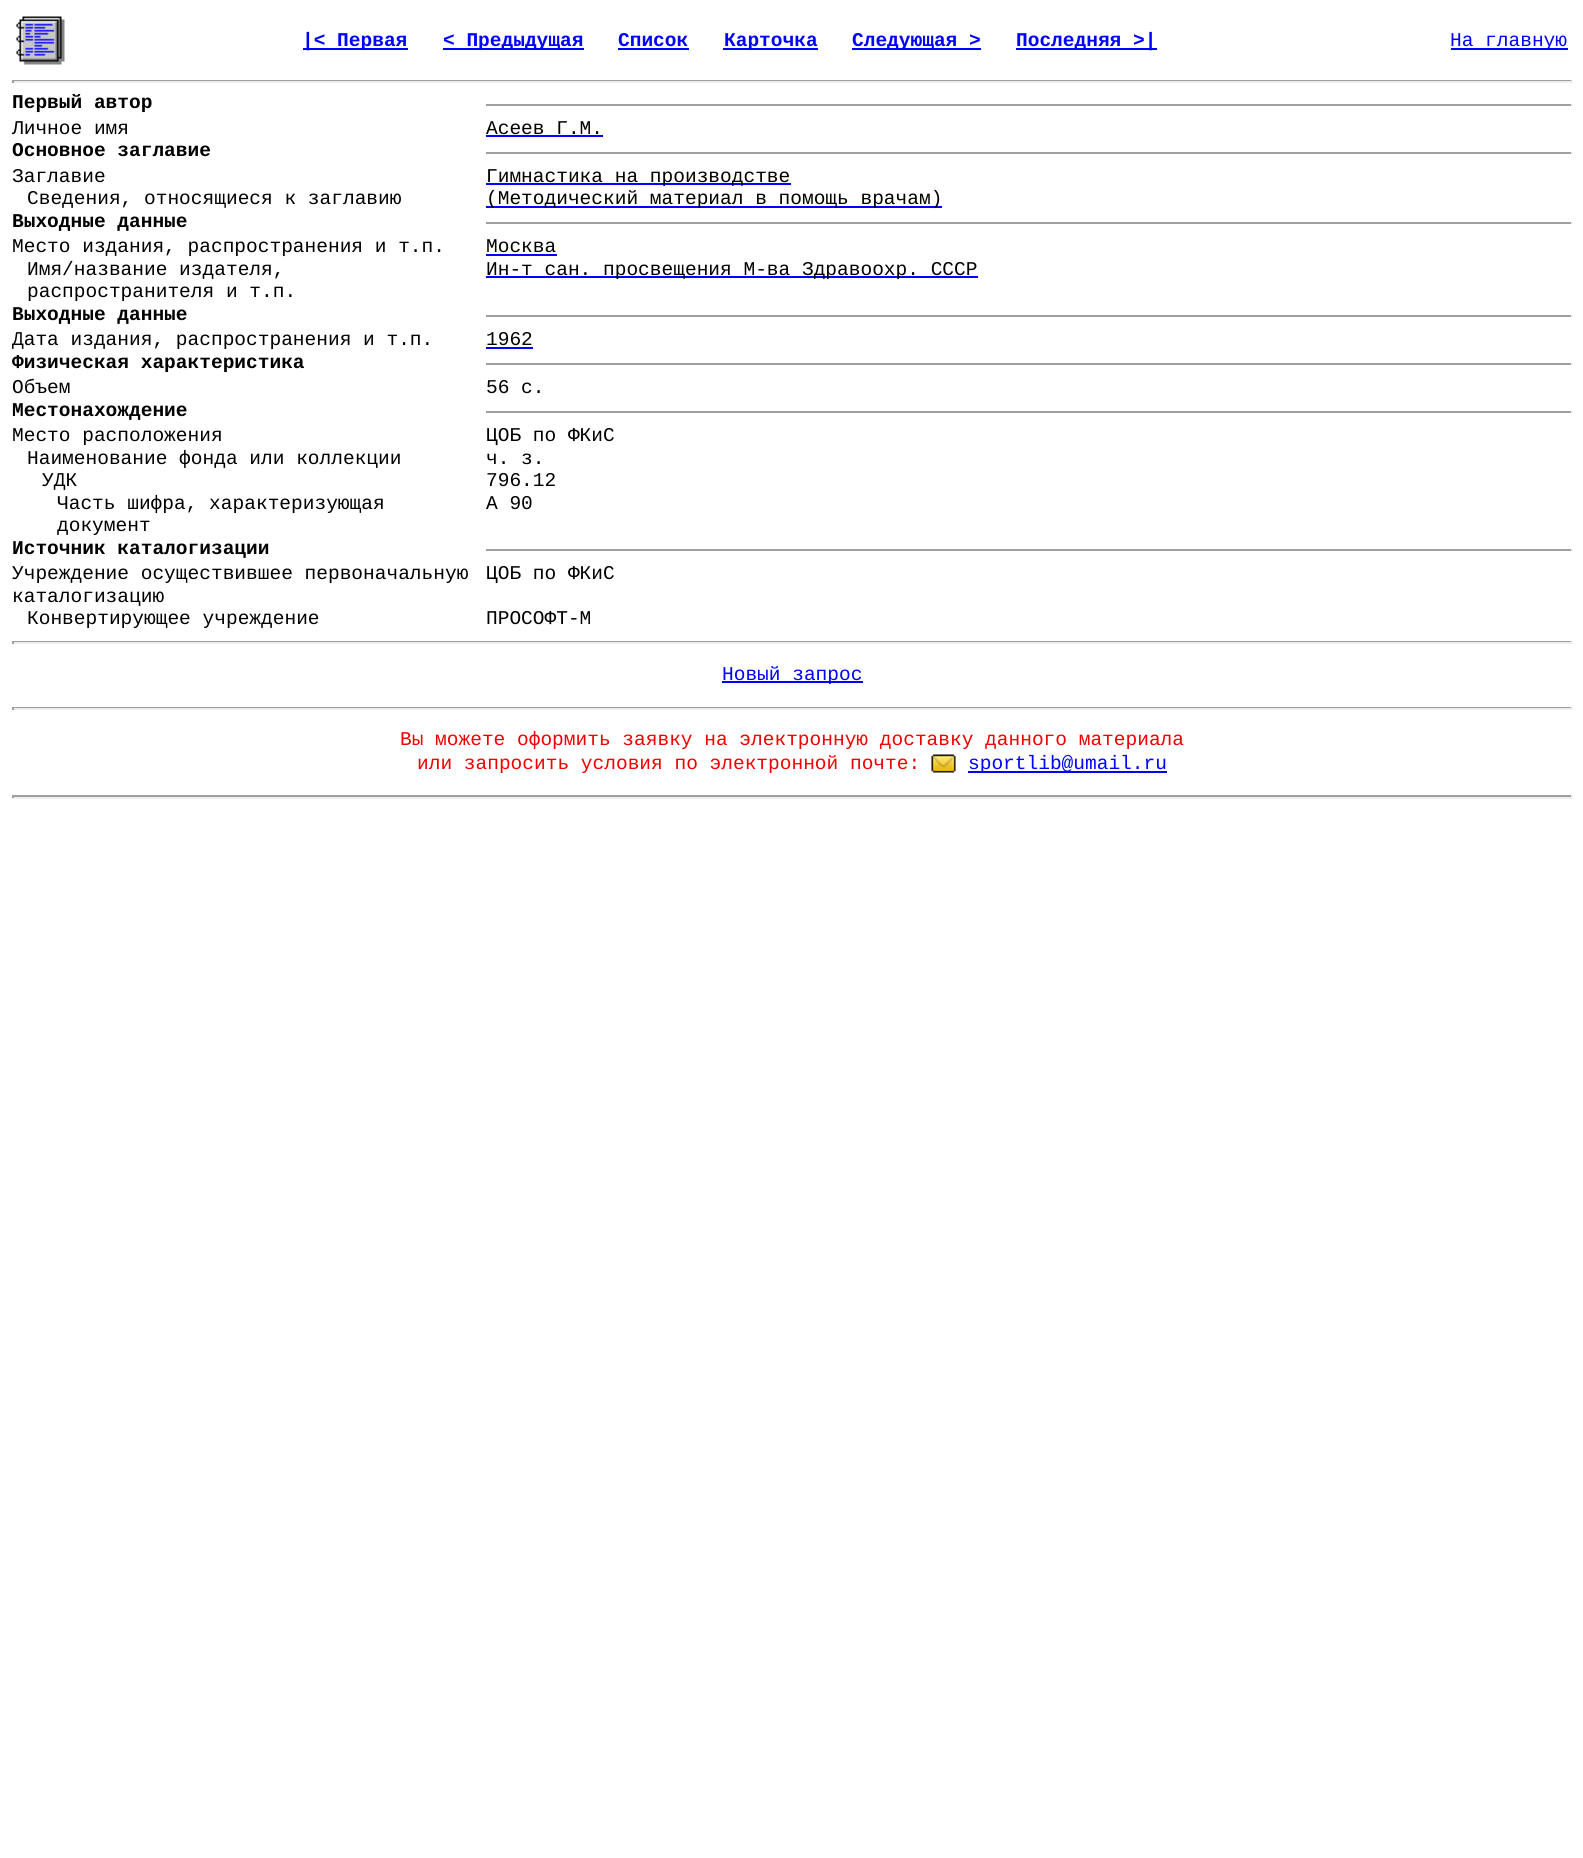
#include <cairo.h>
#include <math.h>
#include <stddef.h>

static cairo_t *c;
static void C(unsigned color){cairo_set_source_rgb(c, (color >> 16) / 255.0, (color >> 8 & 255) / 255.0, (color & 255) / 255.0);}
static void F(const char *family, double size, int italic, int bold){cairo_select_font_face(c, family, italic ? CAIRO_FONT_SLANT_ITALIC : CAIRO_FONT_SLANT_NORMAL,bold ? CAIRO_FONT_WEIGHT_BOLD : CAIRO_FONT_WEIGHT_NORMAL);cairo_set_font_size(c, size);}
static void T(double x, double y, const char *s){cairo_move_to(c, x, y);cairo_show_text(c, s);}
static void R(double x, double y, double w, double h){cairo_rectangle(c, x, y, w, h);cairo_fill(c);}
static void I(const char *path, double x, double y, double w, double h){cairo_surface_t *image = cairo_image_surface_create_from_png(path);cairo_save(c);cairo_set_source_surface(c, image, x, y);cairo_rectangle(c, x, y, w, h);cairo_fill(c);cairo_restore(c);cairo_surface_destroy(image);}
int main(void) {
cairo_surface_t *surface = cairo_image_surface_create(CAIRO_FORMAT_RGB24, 1583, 1858);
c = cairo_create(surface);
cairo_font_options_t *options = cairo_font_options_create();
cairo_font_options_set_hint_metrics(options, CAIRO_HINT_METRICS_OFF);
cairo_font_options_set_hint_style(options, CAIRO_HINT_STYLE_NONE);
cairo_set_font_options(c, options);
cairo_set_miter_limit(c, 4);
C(0xffffff);
cairo_paint(c);
I("1.png",16,16,49,49);
C(0x0000ff);
R(303,48,105,2);
F("Liberation Mono",19.5,0,1);
T(302,46,"|< Первая");
R(443,48,141,2);
T(443,46,"< Предыдущая");
T(618,46,"Список");
R(618,48,71,2);
R(723,48,95,2);
T(724,46,"Карточка");
R(852,48,129,2);
T(852,46,"Следующая >");
R(1016,48,141,2);
T(1016,46,"Последняя >|");
R(1451,48,117,2);
F("Liberation Mono",19.5,0,0);
T(1450,46,"На главную");
C(0x9f9f9f);
R(12,80,1560,1);
C(0xeeeeee);
R(1571,80,2,3);
R(12,81,1560,2);
C(0x9f9f9f);
R(12,80,2,3);
F("Liberation Mono",19.5,0,1);
C(0x000000);
T(12,108,"Первый автор");
C(0x9f9f9f);
R(486,104,1086,2);
C(0xeeeeee);
R(1571,104,2,2);
F("Liberation Mono",19.5,0,0);
C(0x000000);
T(12,134,"Личное имя");
T(486,134,"Асеев Г.М.");
C(0x0000ff);
R(486,135,117,2);
F("Liberation Mono",19.5,0,1);
C(0x000000);
T(12,156,"Основное заглавие");
C(0x9f9f9f);
R(486,152,1086,2);
C(0xeeeeee);
R(1571,152,2,2);
F("Liberation Mono",19.5,0,0);
C(0x000000);
T(12,182,"Заглавие");
C(0x0000ff);
R(486,183,305,2);
C(0x000000);
T(486,182,"Гимнастика на производстве");
T(27,204,"Сведения, относящиеся к заглавию");
C(0x0000ff);
R(486,206,456,2);
C(0x000000);
T(486,204,"(Методический материал в помощь врачам)");
F("Liberation Mono",19.5,0,1);
T(12,227,"Выходные данные");
C(0x9f9f9f);
R(486,222,1086,2);
C(0xeeeeee);
R(1571,222,2,2);
F("Liberation Mono",19.5,0,0);
C(0x000000);
T(12,252,"Место издания, распространения и т.п.");
T(486,252,"Москва");
C(0x0000ff);
R(486,254,71,2);
C(0x000000);
T(27,275,"Имя/название издателя,");
T(27,297,"распространителя и т.п.");
C(0x0000ff);
R(486,276,492,2);
C(0x000000);
T(486,275,"Ин-т сан. просвещения М-ва Здравоохр. СССР");
F("Liberation Mono",19.5,0,1);
T(12,320,"Выходные данные");
C(0x9f9f9f);
R(486,315,1086,2);
C(0xeeeeee);
R(1571,315,2,2);
F("Liberation Mono",19.5,0,0);
C(0x000000);
T(12,345,"Дата издания, распространения и т.п.");
T(486,345,"1962");
C(0x0000ff);
R(486,347,47,2);
F("Liberation Mono",19.5,0,1);
C(0x000000);
T(12,368,"Физическая характеристика");
C(0x9f9f9f);
R(486,363,1086,2);
C(0xeeeeee);
R(1571,363,2,2);
F("Liberation Mono",19.5,0,0);
C(0x000000);
T(12,393,"Объем");
T(486,393,"56 с.");
F("Liberation Mono",19.5,0,1);
T(12,416,"Местонахождение");
C(0x9f9f9f);
R(486,411,1086,2);
C(0xeeeeee);
R(1571,411,2,2);
F("Liberation Mono",19.5,0,0);
C(0x000000);
T(12,441,"Место расположения");
T(486,441,"ЦОБ по ФКиС");
T(27,464,"Наименование фонда или коллекции");
T(486,464,"ч. з.");
T(42,486,"УДК");
T(486,486,"796.12");
T(57,509,"Часть шифра, характеризующая");
T(57,531,"документ");
T(486,509,"А 90");
F("Liberation Mono",19.5,0,1);
T(12,554,"Источник каталогизации");
C(0x9f9f9f);
R(486,549,1086,2);
C(0xeeeeee);
R(1571,549,2,2);
F("Liberation Mono",19.5,0,0);
C(0x000000);
T(12,579,"Учреждение осуществившее первоначальную");
T(12,602,"каталогизацию");
T(486,579,"ЦОБ по ФКиС");
T(27,624,"Конвертирующее учреждение");
T(486,624,"ПРОСОФТ-М");
C(0x9f9f9f);
R(12,641,1560,1);
C(0xeeeeee);
R(1571,641,2,3);
R(12,642,1560,2);
C(0x9f9f9f);
R(12,641,2,3);
C(0x0000ff);
R(722,681,141,2);
T(722,680,"Новый запрос");
C(0x9f9f9f);
R(12,707,1560,1);
C(0xeeeeee);
R(1571,707,2,3);
R(12,708,1560,2);
C(0x9f9f9f);
R(12,707,2,3);
C(0xf00000);
T(400,745,"Вы можете оформить заявку на электронную доставку данного материала");
T(417,769,"или запросить условия по электронной почте:");
I("2.png",931,754,25,19);
C(0x0000ff);
R(968,771,199,2);
T(968,769,"sportlib@umail.ru");
C(0x9f9f9f);
R(12,795,1560,2);
C(0xeeeeee);
R(1571,795,2,3);
R(12,797,1560,2);
C(0x9f9f9f);
R(12,795,2,3);
cairo_surface_write_to_png(surface, "o.png");
cairo_font_options_destroy(options);
cairo_destroy(c);
cairo_surface_destroy(surface);
return 0;
}
